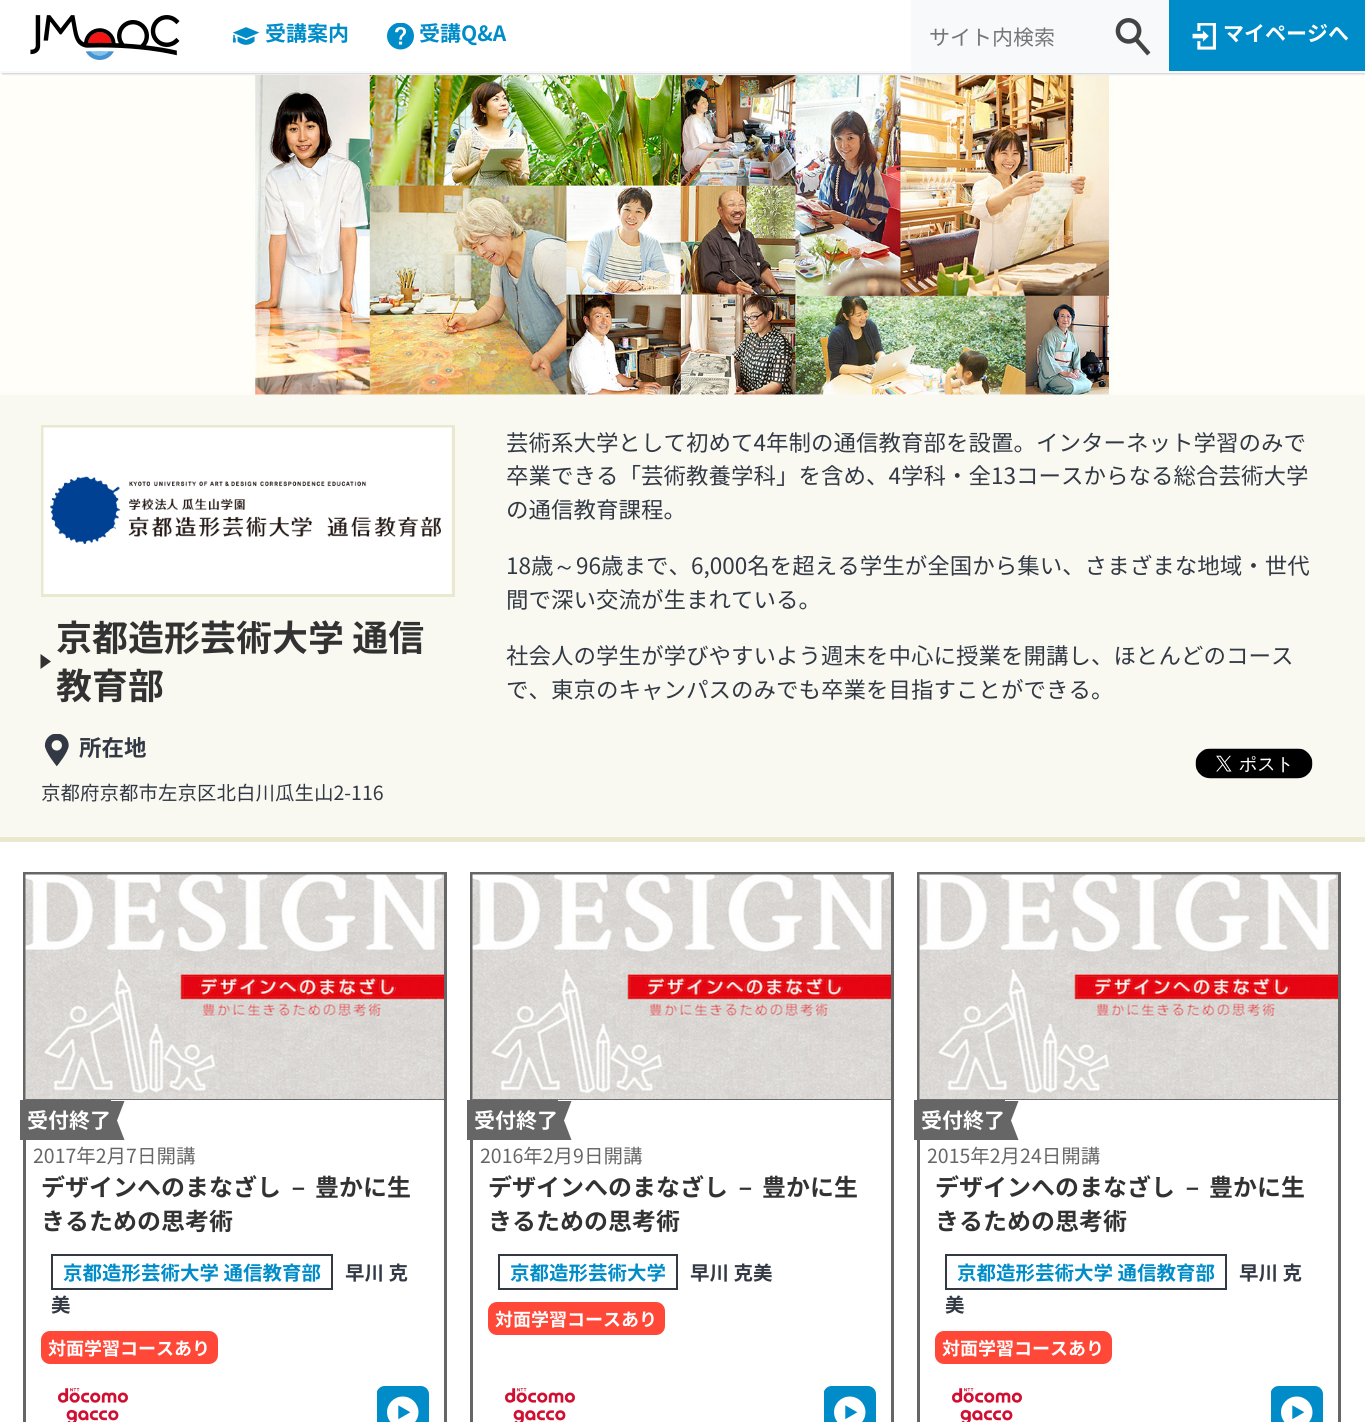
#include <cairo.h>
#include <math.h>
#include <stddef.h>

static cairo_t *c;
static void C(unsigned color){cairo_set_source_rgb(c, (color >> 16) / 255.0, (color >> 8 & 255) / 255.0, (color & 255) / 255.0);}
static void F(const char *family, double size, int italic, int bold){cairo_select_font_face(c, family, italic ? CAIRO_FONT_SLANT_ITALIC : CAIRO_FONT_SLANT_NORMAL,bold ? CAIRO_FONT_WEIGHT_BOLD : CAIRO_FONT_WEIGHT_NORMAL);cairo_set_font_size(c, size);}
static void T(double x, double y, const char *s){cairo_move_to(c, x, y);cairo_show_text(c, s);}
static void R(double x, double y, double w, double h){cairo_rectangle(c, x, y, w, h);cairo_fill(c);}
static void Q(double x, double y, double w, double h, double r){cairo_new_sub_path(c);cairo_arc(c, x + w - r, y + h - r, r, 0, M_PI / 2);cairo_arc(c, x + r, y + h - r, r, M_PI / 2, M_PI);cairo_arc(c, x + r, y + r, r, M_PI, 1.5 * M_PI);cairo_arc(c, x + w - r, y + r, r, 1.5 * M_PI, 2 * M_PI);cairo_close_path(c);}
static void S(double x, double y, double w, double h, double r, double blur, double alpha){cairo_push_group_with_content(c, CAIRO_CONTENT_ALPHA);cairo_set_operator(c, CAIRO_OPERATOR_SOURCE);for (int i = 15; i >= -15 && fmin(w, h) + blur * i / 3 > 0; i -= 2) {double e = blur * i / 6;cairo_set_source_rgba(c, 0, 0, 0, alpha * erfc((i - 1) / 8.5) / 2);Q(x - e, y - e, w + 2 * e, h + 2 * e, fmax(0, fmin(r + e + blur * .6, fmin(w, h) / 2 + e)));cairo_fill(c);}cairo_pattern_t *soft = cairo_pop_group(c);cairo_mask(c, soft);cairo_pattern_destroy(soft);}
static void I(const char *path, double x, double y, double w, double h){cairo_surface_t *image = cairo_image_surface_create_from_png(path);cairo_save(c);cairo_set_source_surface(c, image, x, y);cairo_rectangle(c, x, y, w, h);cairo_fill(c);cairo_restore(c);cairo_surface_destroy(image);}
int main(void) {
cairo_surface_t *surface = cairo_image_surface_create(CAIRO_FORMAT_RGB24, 1365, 1422);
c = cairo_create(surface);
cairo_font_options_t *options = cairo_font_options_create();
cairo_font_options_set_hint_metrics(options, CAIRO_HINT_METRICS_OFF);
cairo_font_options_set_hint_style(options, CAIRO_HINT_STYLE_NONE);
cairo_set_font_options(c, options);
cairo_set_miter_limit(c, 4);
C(0xffffff);
cairo_paint(c);
C(0xf9f9f2);
R(0,394,1365,443);
I("6.png",0,75,1365,320);
cairo_save(c);
cairo_rectangle(c,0,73,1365,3);
cairo_clip(c);
C(0xcccccc);
S(2,2,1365,72,0,1,1);
cairo_restore(c);
C(0xf8f9fa);
R(0,71,1365,2);
I("1.png",30,15,150,45);
I("2.png",233,27,27,18);
F("Noto Sans JP",21,0,1);
C(0x008cc9);
T(265,41,"受講案内");
I("3.png",387,23,27,27);
T(419,41,"受講Q&A");
C(0xf8f9fa);
R(911,0,258,71);
F("Noto Sans JP",21,0,0);
C(0x757575);
T(929,45,"サイト内検索");
I("4.png",1115,18,36,38);
C(0x008cc9);
R(1169,0,196,71);
I("5.png",1192,23,24,27);
F("Noto Sans JP",21,0,1);
C(0xffffff);
T(1223,41,"マイページへ");
C(0xe9e9cf);
R(0,837,1365,5);
cairo_rectangle(c,42.5,426.5,411,169);
cairo_set_line_width(c,3);
cairo_stroke(c);
I("7.png",43,427,409,167);
F("Noto Sans JP",36,0,1);
C(0x323232);
T(56,651,"京都造形芸術大学 通信");
cairo_new_path(c);
cairo_move_to(c,40.5,669);
cairo_line_to(c,40.5,654);
cairo_line_to(c,51,661.5);
cairo_close_path(c);
cairo_fill(c);
T(56,699,"教育部");
I("8.png",44,734,25,33);
F("Noto Sans JP",22.5,0,1);
C(0x323944);
T(79,756,"所在地");
F("Noto Sans JP",19.5,0,0);
T(41,800,"京都府京都市左京区北白川瓜生山2-116");
F("Noto Sans JP",22.5,0,0);
T(506,451,"芸術系大学として初めて4年制の通信教育部を設置。インターネット学習のみで");
T(506,484,"卒業できる「芸術教養学科」を含め、4学科・全13コースからなる総合芸術大学");
T(506,518,"の通信教育課程。");
T(506,574,"18歳");
F("WenQuanYi Zen Hei Medium",22.5,0,0);
T(553,574,"～");
F("Noto Sans JP",22.5,0,0);
T(576,574,"96歳まで、6,000名を超える学生が全国から集い、さまざまな地域・世代");
T(506,608,"間で深い交流が生まれている。");
T(506,664,"社会人の学生が学びやすいよう週末を中心に授業を開講し、ほとんどのコース");
T(506,698,"で、東京のキャンパスのみでも卒業を目指すことができる。");
I("9.png",1195,748,118,31);
cairo_rectangle(c,24.5,873.5,421,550);
C(0x666666);
cairo_stroke(c);
C(0x000000);
R(26,1099,418,1);
I("10.png",25,874,419,226);
C(0x666666);
R(20,1100,91,40);
cairo_new_path(c);
cairo_move_to(c,97.5,1101);
cairo_line_to(c,124.5,1101);
cairo_line_to(c,117,1120.5);
cairo_close_path(c);
cairo_fill(c);
cairo_new_path(c);
cairo_move_to(c,124.5,1140);
cairo_line_to(c,97.5,1140);
cairo_line_to(c,117,1120.5);
cairo_close_path(c);
cairo_fill(c);
F("Noto Sans JP",21,0,1);
C(0xffffff);
T(27,1128,"受付終了");
C(0x666666);
R(111,1114,6,13);
F("Noto Sans JP",19.5,0,0);
T(33,1163,"2017年2月7日開講");
F("Noto Sans JP",24,0,1);
C(0x323232);
T(41,1196,"デザインへのまなざし");
F("WenQuanYi Zen Hei",24,0,1);
T(286,1196,"－");
F("Noto Sans JP",24,0,1);
T(315,1196,"豊かに生");
T(41,1230,"きるための思考術");
cairo_rectangle(c,52,1255,280,34);
C(0x323944);
cairo_set_line_width(c,2);
cairo_stroke(c);
F("Noto Sans JP",19.5,0,1);
C(0x008cc9);
T(63,1280,"京都造形芸術大学 通信教育部");
C(0x323944);
T(345,1280,"早川 克");
T(51,1312,"美");
C(0xff4838);
Q(41,1331,177,33,9);
cairo_fill(c);
F("Noto Sans JP",18,0,1);
C(0xffffff);
T(48,1355,"対面学習コースあり");
I("11.png",57,1388,71,34);
I("12.png",377,1386,52,36);
cairo_rectangle(c,471.5,873.5,421,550);
C(0x666666);
cairo_set_line_width(c,3);
cairo_stroke(c);
C(0x000000);
R(473,1099,418,1);
I("10.png",472,874,419,226);
C(0x666666);
R(467,1100,91,40);
cairo_new_path(c);
cairo_move_to(c,544.5,1101);
cairo_line_to(c,571.5,1101);
cairo_line_to(c,564,1120.5);
cairo_close_path(c);
cairo_fill(c);
cairo_new_path(c);
cairo_move_to(c,571.5,1140);
cairo_line_to(c,544.5,1140);
cairo_line_to(c,564,1120.5);
cairo_close_path(c);
cairo_fill(c);
F("Noto Sans JP",21,0,1);
C(0xffffff);
T(474,1128,"受付終了");
C(0x666666);
R(558,1114,6,13);
F("Noto Sans JP",19.5,0,0);
T(480,1163,"2016年2月9日開講");
F("Noto Sans JP",24,0,1);
C(0x323232);
T(488,1196,"デザインへのまなざし");
F("WenQuanYi Zen Hei",24,0,1);
T(733,1196,"－");
F("Noto Sans JP",24,0,1);
T(762,1196,"豊かに生");
T(488,1230,"きるための思考術");
cairo_rectangle(c,499,1255,178,34);
C(0x323944);
cairo_set_line_width(c,2);
cairo_stroke(c);
F("Noto Sans JP",19.5,0,1);
C(0x008cc9);
T(510,1280,"京都造形芸術大学");
C(0x323944);
T(690,1280,"早川 克美");
C(0xff4838);
Q(488,1302,177,33,9);
cairo_fill(c);
F("Noto Sans JP",18,0,1);
C(0xffffff);
T(495,1326,"対面学習コースあり");
I("13.png",504,1388,71,34);
I("12.png",824,1386,52,36);
cairo_rectangle(c,918.5,873.5,421,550);
C(0x666666);
cairo_set_line_width(c,3);
cairo_stroke(c);
C(0x000000);
R(920,1099,418,1);
I("10.png",919,874,419,226);
C(0x666666);
R(914,1100,91,40);
cairo_new_path(c);
cairo_move_to(c,991.5,1101);
cairo_line_to(c,1018.5,1101);
cairo_line_to(c,1011,1120.5);
cairo_close_path(c);
cairo_fill(c);
cairo_new_path(c);
cairo_move_to(c,1018.5,1140);
cairo_line_to(c,991.5,1140);
cairo_line_to(c,1011,1120.5);
cairo_close_path(c);
cairo_fill(c);
F("Noto Sans JP",21,0,1);
C(0xffffff);
T(921,1128,"受付終了");
C(0x666666);
R(1005,1114,6,13);
F("Noto Sans JP",19.5,0,0);
T(927,1163,"2015年2月24日開講");
F("Noto Sans JP",24,0,1);
C(0x323232);
T(935,1196,"デザインへのまなざし");
F("WenQuanYi Zen Hei",24,0,1);
T(1180,1196,"－");
F("Noto Sans JP",24,0,1);
T(1209,1196,"豊かに生");
T(935,1230,"きるための思考術");
cairo_rectangle(c,946,1255,280,34);
C(0x323944);
cairo_set_line_width(c,2);
cairo_stroke(c);
F("Noto Sans JP",19.5,0,1);
C(0x008cc9);
T(957,1280,"京都造形芸術大学 通信教育部");
C(0x323944);
T(1239,1280,"早川 克");
T(945,1312,"美");
C(0xff4838);
Q(935,1331,177,33,9);
cairo_fill(c);
F("Noto Sans JP",18,0,1);
C(0xffffff);
T(942,1355,"対面学習コースあり");
I("14.png",951,1388,71,34);
I("12.png",1271,1386,52,36);
cairo_surface_write_to_png(surface, "o.png");
cairo_font_options_destroy(options);
cairo_destroy(c);
cairo_surface_destroy(surface);
return 0;
}
